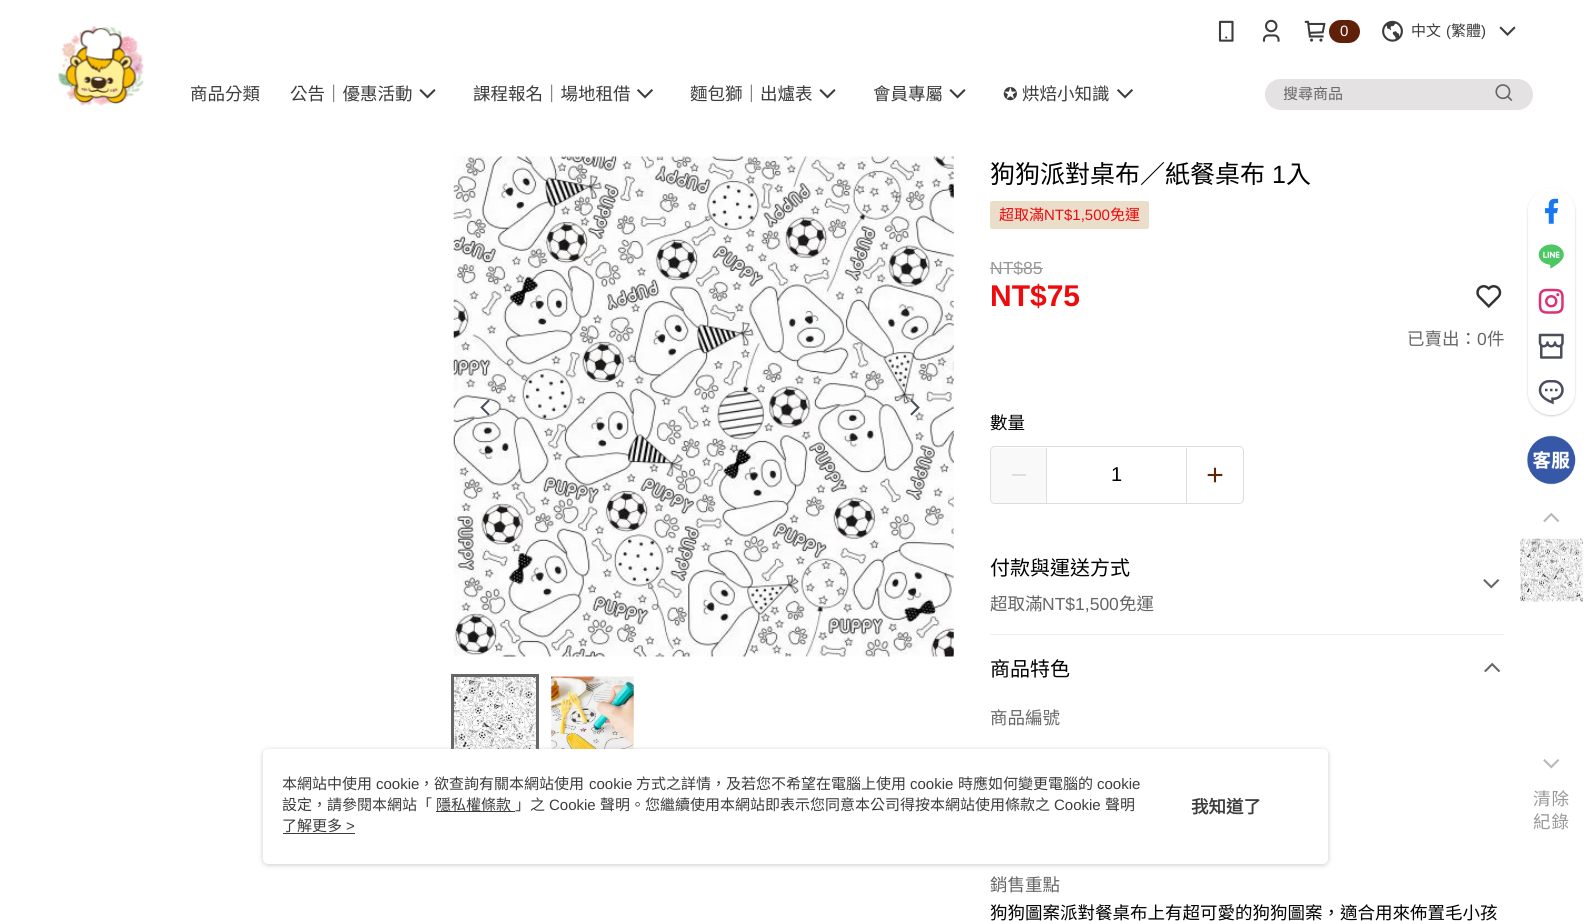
#include <cairo.h>
#include <math.h>
#include <stddef.h>

static cairo_t *c;
static void C(unsigned color){cairo_set_source_rgb(c, (color >> 16) / 255.0, (color >> 8 & 255) / 255.0, (color & 255) / 255.0);}
static void F(const char *family, double size, int italic, int bold){cairo_select_font_face(c, family, italic ? CAIRO_FONT_SLANT_ITALIC : CAIRO_FONT_SLANT_NORMAL,bold ? CAIRO_FONT_WEIGHT_BOLD : CAIRO_FONT_WEIGHT_NORMAL);cairo_set_font_size(c, size);}
static void T(double x, double y, const char *s){cairo_move_to(c, x, y);cairo_show_text(c, s);}
static void L(double x, double y, const char *s, double letter, double word){cairo_move_to(c, x, y);while (*s) {char ch[5] = {0};int n = 0;do ch[n++] = *s++; while ((*s & 0xC0) == 0x80);cairo_show_text(c, ch);cairo_rel_move_to(c, letter + word * (*ch == ' '), 0);}}
static void R(double x, double y, double w, double h){cairo_rectangle(c, x, y, w, h);cairo_fill(c);}
static void Q(double x, double y, double w, double h, double r){cairo_new_sub_path(c);cairo_arc(c, x + w - r, y + h - r, r, 0, M_PI / 2);cairo_arc(c, x + r, y + h - r, r, M_PI / 2, M_PI);cairo_arc(c, x + r, y + r, r, M_PI, 1.5 * M_PI);cairo_arc(c, x + w - r, y + r, r, 1.5 * M_PI, 2 * M_PI);cairo_close_path(c);}
static void S(double x, double y, double w, double h, double r, double blur, double alpha){cairo_push_group_with_content(c, CAIRO_CONTENT_ALPHA);cairo_set_operator(c, CAIRO_OPERATOR_SOURCE);for (int i = 15; i >= -15 && fmin(w, h) + blur * i / 3 > 0; i -= 2) {double e = blur * i / 6;cairo_set_source_rgba(c, 0, 0, 0, alpha * erfc((i - 1) / 8.5) / 2);Q(x - e, y - e, w + 2 * e, h + 2 * e, fmax(0, fmin(r + e + blur * .6, fmin(w, h) / 2 + e)));cairo_fill(c);}cairo_pattern_t *soft = cairo_pop_group(c);cairo_mask(c, soft);cairo_pattern_destroy(soft);}
static void I(const char *path, double x, double y, double w, double h){cairo_surface_t *image = cairo_image_surface_create_from_png(path);cairo_save(c);cairo_set_source_surface(c, image, x, y);cairo_rectangle(c, x, y, w, h);cairo_fill(c);cairo_restore(c);cairo_surface_destroy(image);}
int main(void) {
cairo_surface_t *surface = cairo_image_surface_create(CAIRO_FORMAT_RGB24, 1588, 921);
c = cairo_create(surface);
cairo_font_options_t *options = cairo_font_options_create();
cairo_font_options_set_hint_metrics(options, CAIRO_HINT_METRICS_OFF);
cairo_font_options_set_hint_style(options, CAIRO_HINT_STYLE_NONE);
cairo_set_font_options(c, options);
cairo_set_miter_limit(c, 4);
C(0xffffff);
cairo_paint(c);
I("1.png",58,25,86,81);
I("2.png",1218,20,16,22);
I("3.png",1262,19,18,23);
I("4.png",1304,20,22,22);
C(0x5f1f09);
Q(1329,20,31,23,11.5);
cairo_fill(c);
F("Liberation Sans",15,0,0);
C(0xffffff);
T(1340,36,"0");
I("5.png",1382,20,21,22);
F("Noto Sans CJK TC",15,0,0);
C(0x3d3b3b);
T(1411,36,"中文");
F("Liberation Sans",15,0,0);
T(1446,36,"(");
F("Noto Sans CJK TC",15,0,0);
T(1451,36,"繁體");
F("Liberation Sans",15,0,0);
T(1481,36,")");
I("6.png",1499,26,17,10);
F("Noto Sans CJK TC",17.5,0,0);
T(190,100,"商品分類");
T(290,100,"公告｜優惠活動");
I("7.png",419,89,17,10);
T(473,100,"課程報名｜場地租借");
I("8.png",637,89,16,10);
T(690,100,"麵包獅｜出爐表");
I("7.png",819,89,17,10);
T(873,100,"會員專屬");
I("7.png",949,89,17,10);
F("DejaVu Sans",17.5,0,0);
T(1003,100,"✪");
F("Noto Sans CJK TC",17.5,0,0);
T(1022,100,"烘焙小知識");
I("8.png",1117,89,16,10);
C(0xe4e2e2);
Q(1265,79,268,31,15.5);
cairo_fill(c);
cairo_save(c);
cairo_rectangle(c,1284,81,190,22);
cairo_clip(c);
F("Noto Sans CJK TC",15,0,0);
C(0x666666);
T(1283,99,"搜尋商品");
cairo_restore(c);
I("9.png",1495,84,18,17);
I("10.png",453,156,501,501);
I("11.png",480,399,10,17);
I("12.png",910,399,10,17);
I("13.png",454,677,82,72);
cairo_rectangle(c,452.5,675.5,85,84);
C(0x666666);
cairo_set_line_width(c,3);
cairo_stroke(c);
I("14.png",551,676,83,73);
F("Noto Sans CJK TC",25,0,0);
C(0x000000);
T(990,183,"狗狗派對桌布／紙餐桌布");
F("Liberation Sans",25,0,0);
T(1272,183,"1");
F("Noto Sans CJK TC",25,0,0);
T(1286,183,"入");
C(0xeaddc9);
Q(990.5,201.5,158,27,2);
cairo_fill_preserve(c);
cairo_set_line_width(c,1);
cairo_stroke(c);
F("Noto Sans CJK TC",15,0,0);
C(0xee0a0d);
T(999,220,"超取滿");
F("Liberation Sans",15,0,0);
T(1044,220,"NT$1,500");
F("Noto Sans CJK TC",15,0,0);
T(1110,220,"免運");
F("Liberation Sans",17.5,0,0);
C(0x999999);
T(990,274,"NT$85");
R(990,268,53,1);
F("Liberation Sans",30,0,1);
C(0xee0a0d);
T(990,306,"NT$75");
I("15.png",1476,285,26,23);
F("Noto Sans CJK TC",17.5,0,0);
C(0x666666);
T(1407,345,"已賣出：");
F("Liberation Sans",17.5,0,0);
T(1477,345,"0");
F("Noto Sans CJK TC",17.5,0,0);
T(1487,345,"件");
C(0x000000);
T(990,429,"數量");
Q(990.5,446.5,253,57,4.5);
C(0xdddddd);
cairo_stroke(c);
cairo_set_source_rgba(c,0.945,0.945,0.945,0.4);
R(991,448,55,55);
C(0xdddddd);
R(1012,474,14,2);
R(1186,448,1,55);
R(1046,448,1,55);
F("Liberation Sans",20,0,0);
C(0x000000);
T(1111,481,"1");
I("16.png",1207,467,16,16);
C(0xeceff1);
R(990,634,514,1);
F("Noto Sans CJK TC",20,0,0);
C(0x000000);
T(990,575,"付款與運送方式");
F("Noto Sans CJK TC",17.5,0,0);
C(0x666666);
T(990,610,"超取滿");
F("Liberation Sans",17.5,0,0);
T(1042,610,"NT$1,500");
F("Noto Sans CJK TC",17.5,0,0);
T(1119,610,"免運");
I("17.png",1483,579,17,10);
F("Noto Sans CJK TC",20,0,0);
C(0x000000);
T(990,676,"商品特色");
I("18.png",1484,662,17,11);
F("Noto Sans CJK TC",17.5,0,0);
C(0x666666);
T(990,724,"商品編號");
T(990,891,"銷售重點");
C(0x000000);
T(990,919,"狗狗圖案派對餐桌布上有超可愛的狗狗圖案，適合用來佈置毛小孩");
cairo_save(c);
cairo_set_fill_rule(c,CAIRO_FILL_RULE_EVEN_ODD);
cairo_new_path(c);
cairo_move_to(c,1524,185);
cairo_line_to(c,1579,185);
cairo_line_to(c,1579,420);
cairo_line_to(c,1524,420);
cairo_close_path(c);
cairo_move_to(c,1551.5,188);
cairo_curve_to(c,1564.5,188,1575,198.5,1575,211.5);
cairo_line_to(c,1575,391.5);
cairo_curve_to(c,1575,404.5,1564.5,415,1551.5,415);
cairo_curve_to(c,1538.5,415,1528,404.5,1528,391.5);
cairo_line_to(c,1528,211.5);
cairo_curve_to(c,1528,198.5,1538.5,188,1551.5,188);
cairo_close_path(c);
cairo_clip(c);
C(0x000000);
S(1528,189,47,227,23.5,1,.2);
cairo_restore(c);
cairo_set_source_rgba(c,1,1,1,0.9);
Q(1528.5,188.5,46,226,23);
cairo_fill_preserve(c);
C(0xfdfdfd);
cairo_stroke(c);
I("19.png",1545,198,14,26);
I("20.png",1538,244,26,25);
I("21.png",1538,288,26,26);
I("22.png",1538,333,26,26);
I("23.png",1538,380,26,25);
I("24.png",1527,435,49,50);
I("25.png",1543,512,17,11);
I("26.png",1520,538,63,64);
I("27.png",1543,759,17,10);
C(0x999999);
L(1533,805,"清除",1,0);
L(1533,828,"紀錄",1,0);
C(0x979797);
S(263,750,1065,115,5,2.5,.5);
C(0xffffff);
Q(263,749,1065,115,5);
cairo_fill(c);
cairo_save(c);
cairo_rectangle(c,283,774,862,42);
cairo_clip(c);
F("Noto Sans CJK TC",15,0,0);
C(0x3d3b3b);
T(282,789,"本網站中使用");
cairo_restore(c);
F("Liberation Sans",15,0,0);
C(0x3d3b3b);
T(376,789,"cookie");
F("Noto Sans CJK TC",15,0,0);
T(419,789,"，欲查詢有關本網站使用");
F("Liberation Sans",15,0,0);
T(589,789,"cookie");
F("Noto Sans CJK TC",15,0,0);
T(636,789,"方式之詳情，及若您不希望在電腦上使用");
F("Liberation Sans",15,0,0);
T(910,789,"cookie");
F("Noto Sans CJK TC",15,0,0);
T(958,789,"時應如何變更電腦的");
F("Liberation Sans",15,0,0);
T(1097,789,"cookie");
F("Noto Sans CJK TC",15,0,0);
T(282,810,"設定，請參閱本網站「");
R(436,811,79,1);
T(436,810,"隱私權條款");
T(515,810,"」之");
F("Liberation Sans",15,0,0);
T(549,810,"Cookie");
F("Noto Sans CJK TC",15,0,0);
T(600,810,"聲明。您繼續使用本網站即表示您同意本公司得按本網站使用條款之");
F("Liberation Sans",15,0,0);
T(1054,810,"Cookie");
F("Noto Sans CJK TC",15,0,0);
T(1105,810,"聲明");
T(282,831,"了解更多");
F("Liberation Sans",15,0,0);
T(346,831,">");
R(283,833,72,1);
F("Noto Sans CJK TC",17.5,0,1);
T(1191,813,"我知道了");
cairo_surface_write_to_png(surface, "o.png");
cairo_font_options_destroy(options);
cairo_destroy(c);
cairo_surface_destroy(surface);
return 0;
}
